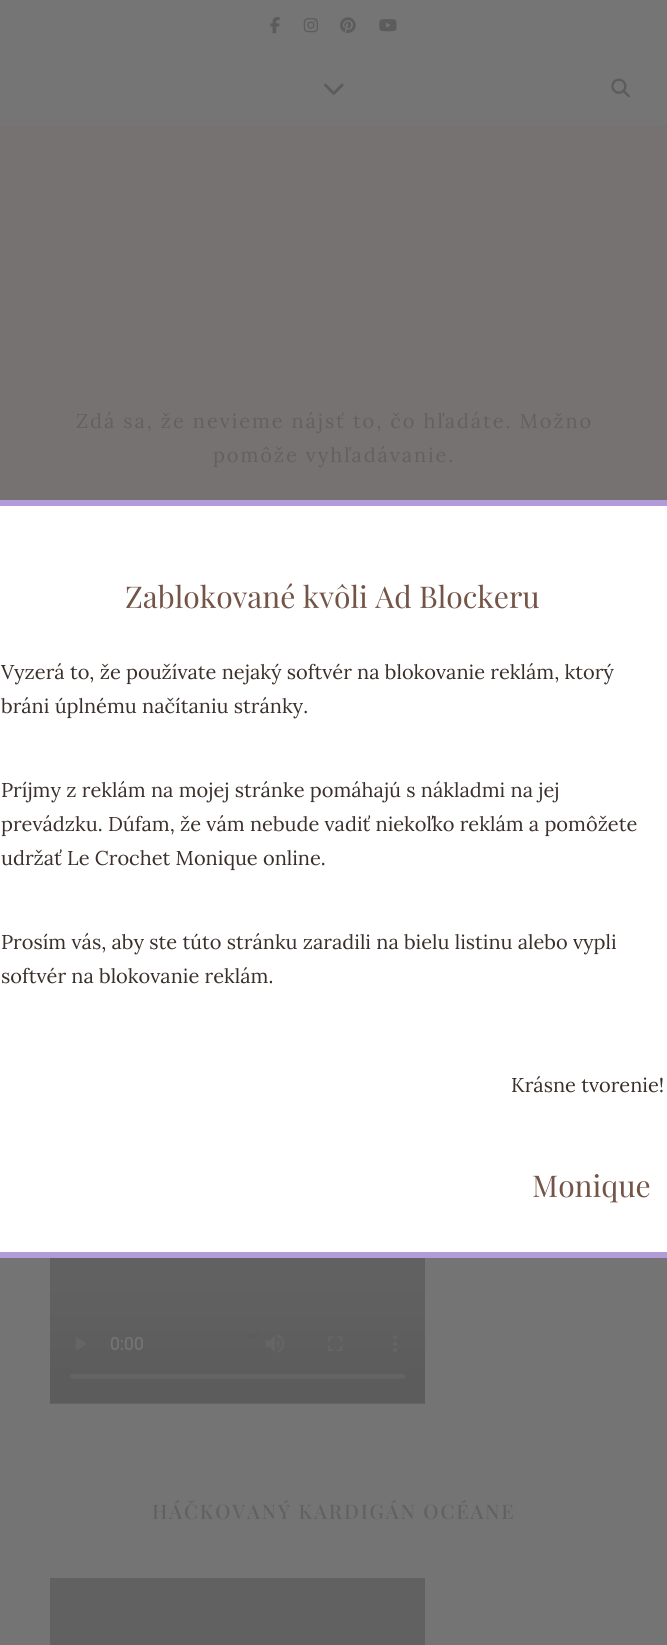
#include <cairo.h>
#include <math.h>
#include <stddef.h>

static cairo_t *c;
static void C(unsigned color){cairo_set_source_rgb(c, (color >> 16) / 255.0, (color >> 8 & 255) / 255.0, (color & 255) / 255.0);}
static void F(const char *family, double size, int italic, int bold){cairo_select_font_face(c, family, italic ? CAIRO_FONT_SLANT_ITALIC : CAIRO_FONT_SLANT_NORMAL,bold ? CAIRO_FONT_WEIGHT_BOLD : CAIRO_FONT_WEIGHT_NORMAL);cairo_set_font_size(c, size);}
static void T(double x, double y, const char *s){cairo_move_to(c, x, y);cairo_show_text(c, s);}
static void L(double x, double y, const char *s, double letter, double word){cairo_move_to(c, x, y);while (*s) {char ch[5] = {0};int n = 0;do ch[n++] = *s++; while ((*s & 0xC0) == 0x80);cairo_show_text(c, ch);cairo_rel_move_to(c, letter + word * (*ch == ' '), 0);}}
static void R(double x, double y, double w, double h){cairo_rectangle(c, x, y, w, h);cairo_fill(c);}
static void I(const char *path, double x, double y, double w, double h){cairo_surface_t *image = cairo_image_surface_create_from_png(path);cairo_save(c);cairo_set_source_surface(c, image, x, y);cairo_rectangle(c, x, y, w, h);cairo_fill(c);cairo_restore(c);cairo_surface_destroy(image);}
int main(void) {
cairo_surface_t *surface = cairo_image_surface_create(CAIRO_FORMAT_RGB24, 667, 1645);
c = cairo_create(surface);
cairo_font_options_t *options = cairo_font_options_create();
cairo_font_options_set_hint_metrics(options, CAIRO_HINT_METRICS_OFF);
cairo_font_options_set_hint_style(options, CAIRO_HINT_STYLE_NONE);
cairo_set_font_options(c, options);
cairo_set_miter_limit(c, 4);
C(0x757271);
cairo_paint(c);
C(0x757575);
R(0,0,667,125);
I("1.png",270,17,10,17);
I("2.png",303,18,15,15);
I("3.png",340,17,16,16);
I("4.png",379,19,18,13);
I("5.png",323,83,21,12);
I("6.png",611,78,19,20);
F("Lora",20,0,0);
C(0x626160);
L(76,428,"Zdá sa, že nevieme nájsť to, čo hľadáte. Možno",1.9,0);
L(213,462,"pomôže vyhľadávanie.",1.9,0);
C(0x747474);
R(0,1258,667,387);
I("7.png",50,1258,375,146);
F("Playfair Display Medium",20,0,0);
C(0x626160);
L(152,1519,"HÁČKOVANÝ KARDIGÁN OCÉANE",1.9,0);
C(0x616161);
R(50,1578,375,67);
C(0xffffff);
cairo_rectangle(c,-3,503,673,752);
cairo_fill_preserve(c);
C(0xb19cd9);
cairo_set_line_width(c,6);
cairo_stroke(c);
F("Playfair Display",30,0,0);
C(0x735447);
T(125,608,"Zablokované kvôli Ad Blockeru");
F("Lora",20,0,0);
C(0x3a2f2a);
T(1,679,"Vyzerá to, že používate nejaký softvér na blokovanie reklám, ktorý");
T(1,713,"bráni úplnému načítaniu stránky.");
T(1,797,"Príjmy z reklám na mojej stránke pomáhajú s nákladmi na jej");
T(1,831,"prevádzku. Dúfam, že vám nebude vadiť niekoľko reklám a pomôžete");
T(1,865,"udržať Le Crochet Monique online.");
T(1,949,"Prosím vás, aby ste túto stránku zaradili na bielu listinu alebo vypli");
T(1,983,"softvér na blokovanie reklám.");
T(511,1092,"Krásne tvorenie!");
F("Playfair Display",30,0,0);
C(0x735447);
T(532,1197,"Monique");
cairo_surface_write_to_png(surface, "o.png");
cairo_font_options_destroy(options);
cairo_destroy(c);
cairo_surface_destroy(surface);
return 0;
}
